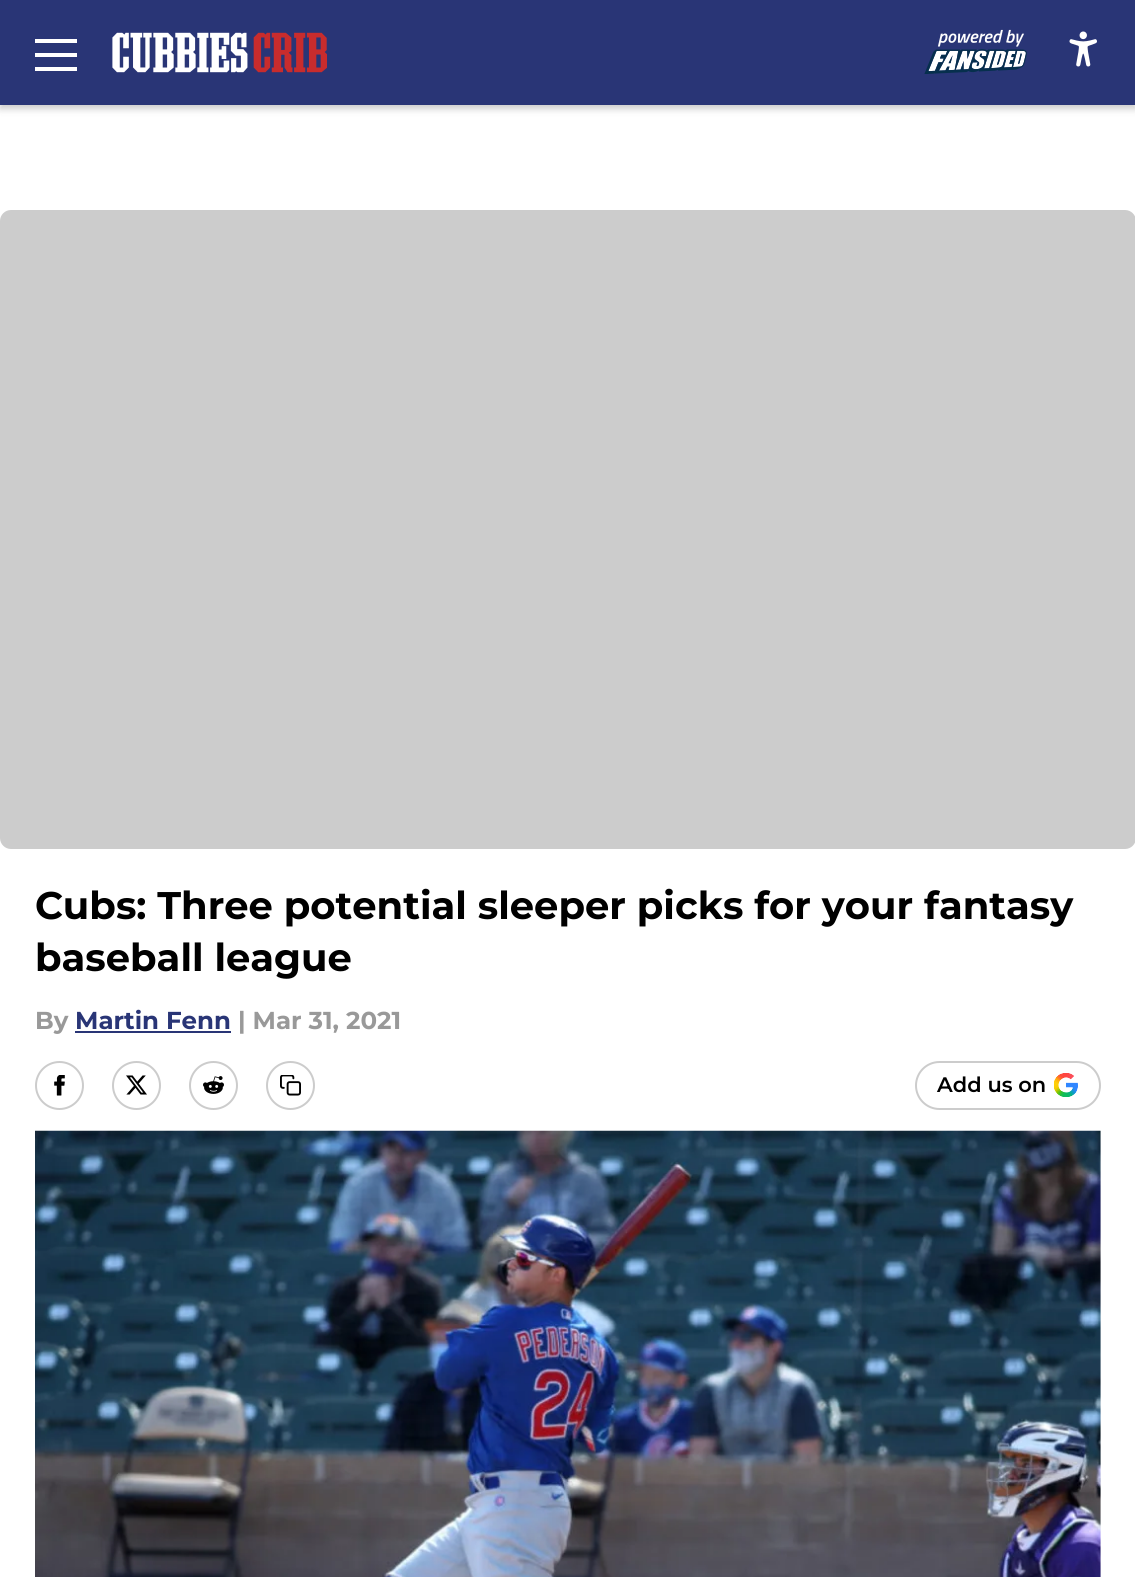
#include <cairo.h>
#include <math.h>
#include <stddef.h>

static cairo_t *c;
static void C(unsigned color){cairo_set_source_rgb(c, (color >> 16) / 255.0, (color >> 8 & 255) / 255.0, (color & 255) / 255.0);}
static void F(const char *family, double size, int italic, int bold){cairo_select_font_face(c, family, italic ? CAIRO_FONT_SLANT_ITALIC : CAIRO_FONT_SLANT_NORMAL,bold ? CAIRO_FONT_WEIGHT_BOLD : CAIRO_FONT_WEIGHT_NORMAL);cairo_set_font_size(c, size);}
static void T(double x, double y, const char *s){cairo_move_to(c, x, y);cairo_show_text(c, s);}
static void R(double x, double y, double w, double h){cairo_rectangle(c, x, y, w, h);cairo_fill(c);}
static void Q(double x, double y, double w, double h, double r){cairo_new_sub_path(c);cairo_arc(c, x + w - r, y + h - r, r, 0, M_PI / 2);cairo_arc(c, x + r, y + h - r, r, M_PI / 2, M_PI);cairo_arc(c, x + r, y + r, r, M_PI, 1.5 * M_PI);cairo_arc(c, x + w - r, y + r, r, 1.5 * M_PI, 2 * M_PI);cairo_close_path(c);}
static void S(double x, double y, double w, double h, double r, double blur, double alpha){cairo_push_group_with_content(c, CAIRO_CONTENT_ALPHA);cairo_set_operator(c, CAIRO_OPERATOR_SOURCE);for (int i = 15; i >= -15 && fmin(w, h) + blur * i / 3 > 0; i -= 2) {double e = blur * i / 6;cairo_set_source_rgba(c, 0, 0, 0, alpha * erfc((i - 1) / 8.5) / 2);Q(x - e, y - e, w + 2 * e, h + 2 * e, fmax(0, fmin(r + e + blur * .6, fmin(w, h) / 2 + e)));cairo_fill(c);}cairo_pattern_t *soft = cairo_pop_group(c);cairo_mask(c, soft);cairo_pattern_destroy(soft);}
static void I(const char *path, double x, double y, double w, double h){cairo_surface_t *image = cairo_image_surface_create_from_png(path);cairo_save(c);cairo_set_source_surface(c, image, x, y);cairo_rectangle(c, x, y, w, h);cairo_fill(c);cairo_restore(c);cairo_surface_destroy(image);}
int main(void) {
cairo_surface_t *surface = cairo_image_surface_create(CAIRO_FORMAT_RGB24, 1135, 1577);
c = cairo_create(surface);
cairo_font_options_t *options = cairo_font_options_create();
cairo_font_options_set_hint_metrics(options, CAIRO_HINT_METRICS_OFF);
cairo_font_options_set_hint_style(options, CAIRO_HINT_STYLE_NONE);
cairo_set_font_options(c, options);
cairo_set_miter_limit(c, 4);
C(0xffffff);
cairo_paint(c);
C(0x000000);
S(0,4,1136,105,0,3.5,.2);
C(0x293576);
R(0,0,1135,105);
C(0xffffff);
R(35,39,42,4);
R(35,53,42,4);
R(35,67,42,4);
I("1.png",112,32,215,41);
I("2.png",924,29,103,45);
I("3.png",1069,31,28,36);
C(0xcccccc);
Q(0,210,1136,639,11);
cairo_fill(c);
F("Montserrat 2 Thin",38.5,0,0);
C(0x000000);
T(35,919,"Cubs: Three potential sleeper picks for your fantasy");
T(35,971,"baseball league");
F("Montserrat 2 Thin",24.5,0,0);
C(0x999999);
T(35,1029,"By");
C(0x293576);
T(75,1029,"Martin Fenn");
R(75,1031,156,2);
C(0x999999);
T(238,1029,"| Mar 31, 2021");
cairo_new_path(c);
cairo_arc(c,59.5,1085.5,23.5,0,2 * M_PI);
C(0xcccccc);
cairo_stroke(c);
I("4.png",54,1075,11,21);
cairo_arc(c,136.5,1085.5,23.5,0,2 * M_PI);
cairo_stroke(c);
I("5.png",126,1075,21,20);
cairo_arc(c,213.5,1085.5,23.5,0,2 * M_PI);
cairo_stroke(c);
I("6.png",203,1076,21,18);
cairo_arc(c,290.5,1085.5,23.5,0,2 * M_PI);
cairo_stroke(c);
I("7.png",280,1075,21,21);
Q(916,1062,184,47,23.5);
cairo_stroke(c);
F("Montserrat Thin",21,0,0);
C(0x000000);
T(937,1092,"Add us on");
I("8.png",1054,1073,24,24);
C(0xf7f7f7);
R(1100,1131,1,446);
I("9.png",35,1130,1066,447);
cairo_surface_write_to_png(surface, "o.png");
cairo_font_options_destroy(options);
cairo_destroy(c);
cairo_surface_destroy(surface);
return 0;
}
